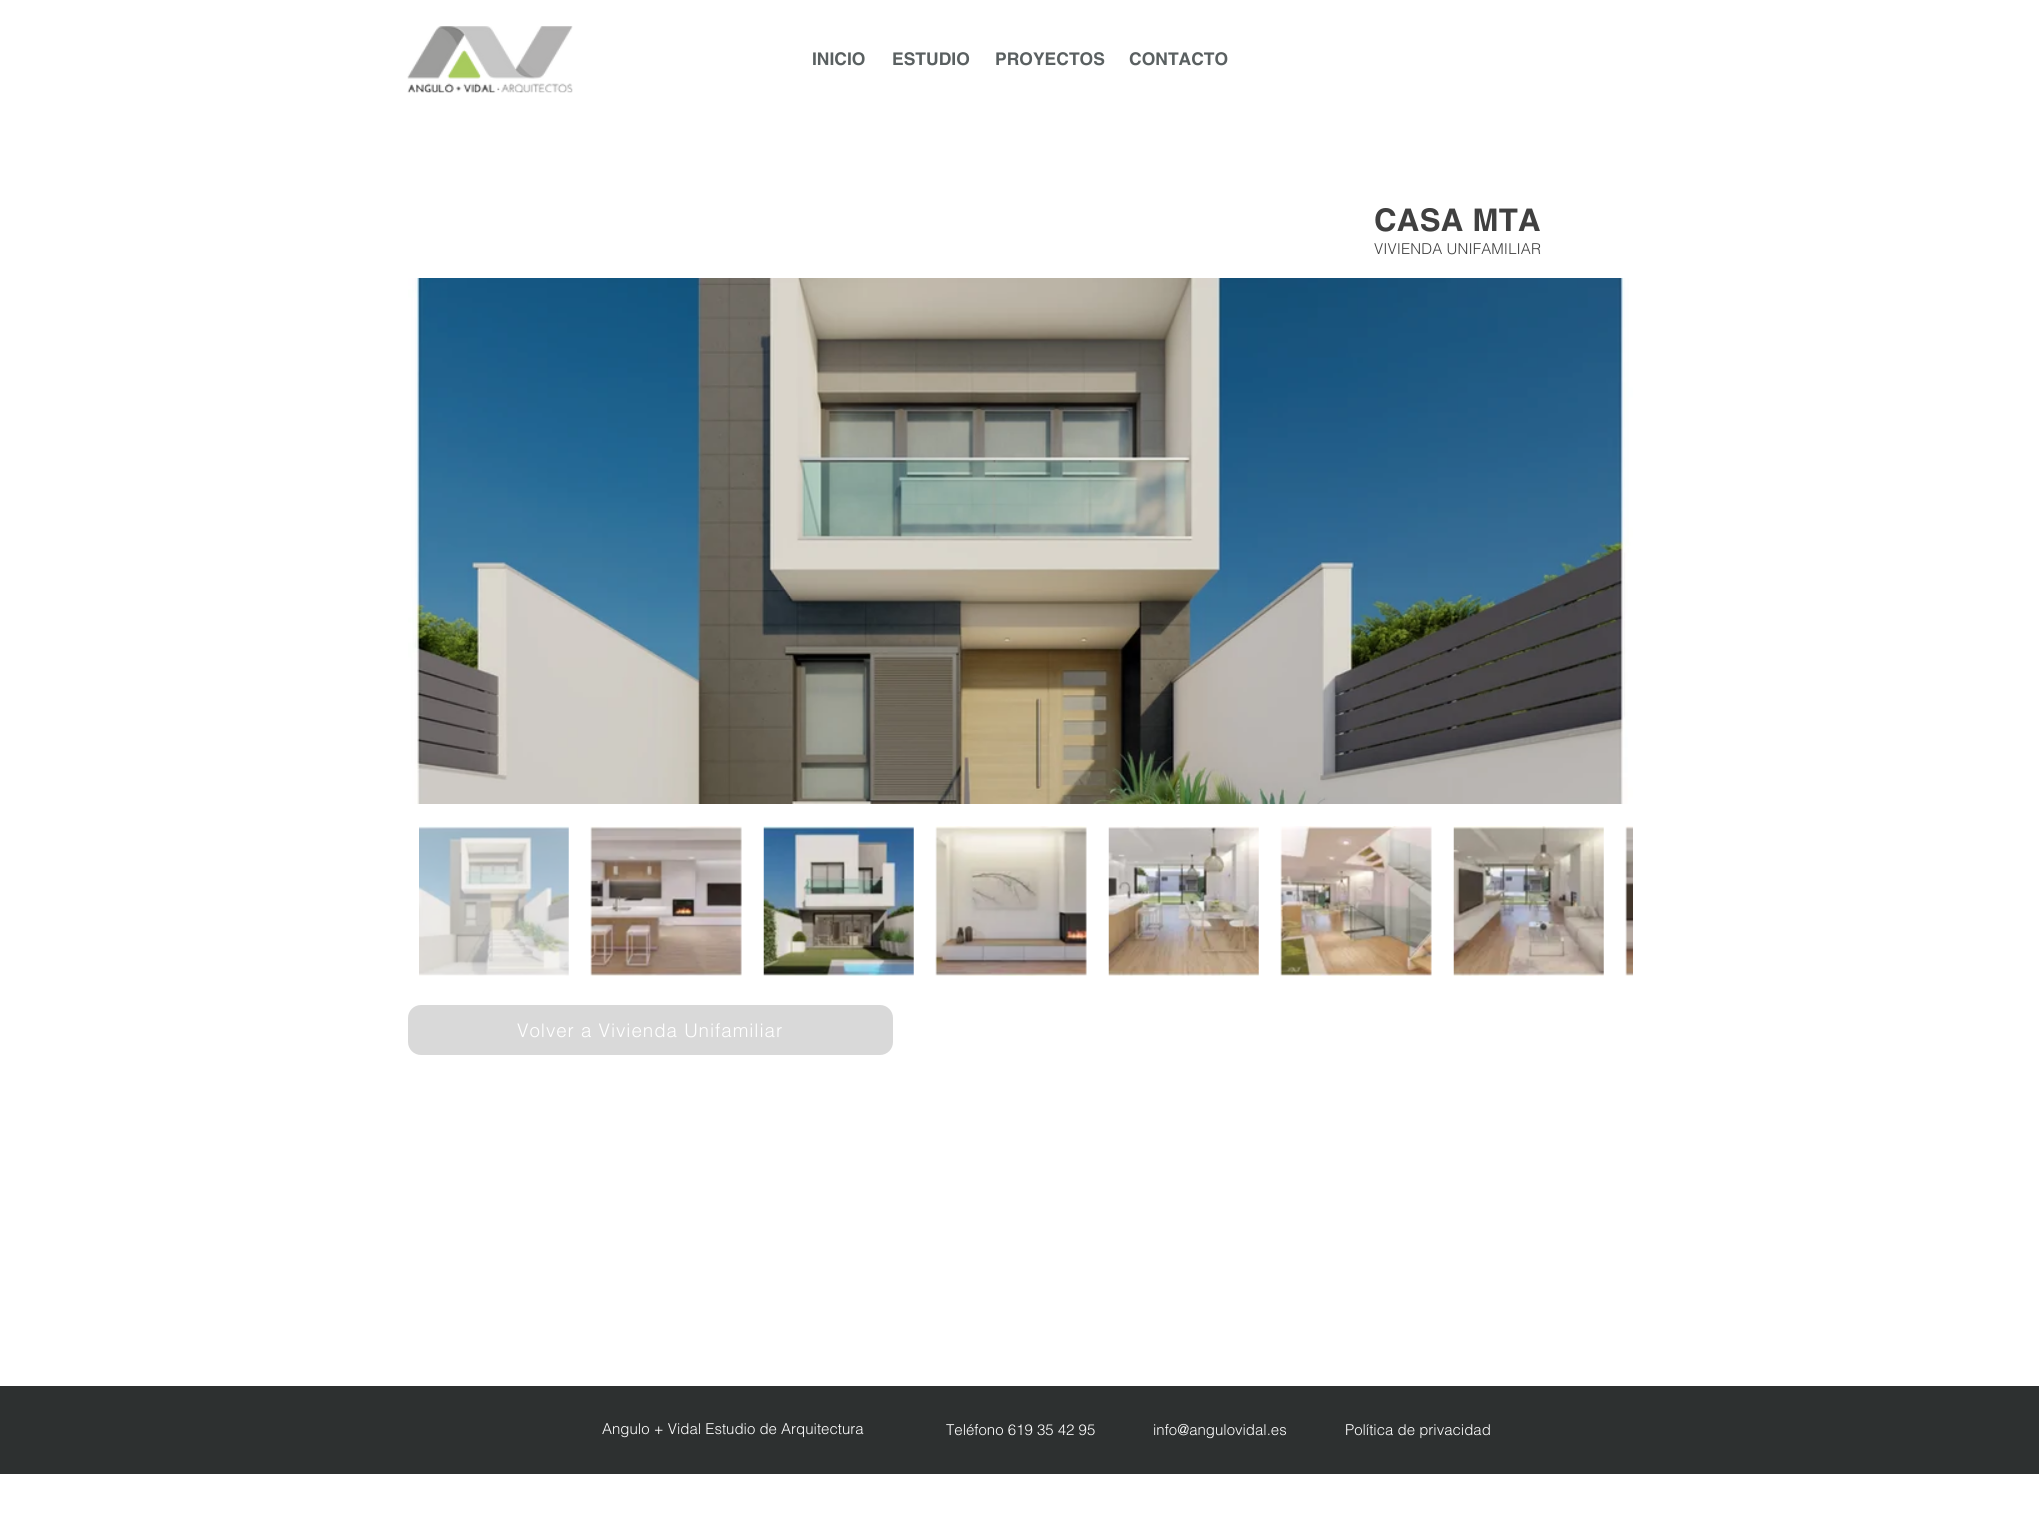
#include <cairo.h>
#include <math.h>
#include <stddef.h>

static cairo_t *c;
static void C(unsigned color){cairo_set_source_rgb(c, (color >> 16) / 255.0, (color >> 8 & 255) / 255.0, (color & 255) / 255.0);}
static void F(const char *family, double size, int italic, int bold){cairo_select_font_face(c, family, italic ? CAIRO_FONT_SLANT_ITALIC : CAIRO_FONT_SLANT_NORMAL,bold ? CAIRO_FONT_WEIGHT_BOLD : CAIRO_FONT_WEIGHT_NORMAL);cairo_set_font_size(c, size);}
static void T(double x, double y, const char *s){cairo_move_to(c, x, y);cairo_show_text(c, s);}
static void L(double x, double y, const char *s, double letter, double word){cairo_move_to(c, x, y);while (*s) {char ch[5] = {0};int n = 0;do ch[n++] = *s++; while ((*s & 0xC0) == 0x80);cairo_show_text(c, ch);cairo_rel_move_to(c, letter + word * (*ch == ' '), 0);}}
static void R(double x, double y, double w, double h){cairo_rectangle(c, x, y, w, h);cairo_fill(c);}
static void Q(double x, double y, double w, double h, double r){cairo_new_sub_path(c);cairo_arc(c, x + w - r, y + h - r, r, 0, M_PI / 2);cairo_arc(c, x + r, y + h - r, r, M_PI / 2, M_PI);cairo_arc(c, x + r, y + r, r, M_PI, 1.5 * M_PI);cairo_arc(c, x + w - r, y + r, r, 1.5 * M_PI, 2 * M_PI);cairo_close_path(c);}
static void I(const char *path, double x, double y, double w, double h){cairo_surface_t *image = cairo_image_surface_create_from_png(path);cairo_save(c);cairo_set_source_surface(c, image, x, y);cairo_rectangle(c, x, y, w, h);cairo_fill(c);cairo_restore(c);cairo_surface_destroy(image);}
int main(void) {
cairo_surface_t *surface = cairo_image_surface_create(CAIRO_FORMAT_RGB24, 2039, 1535);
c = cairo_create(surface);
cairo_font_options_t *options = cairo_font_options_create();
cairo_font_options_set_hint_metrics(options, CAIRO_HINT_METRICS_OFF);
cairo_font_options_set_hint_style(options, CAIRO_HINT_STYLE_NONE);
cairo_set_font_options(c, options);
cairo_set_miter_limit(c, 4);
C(0xffffff);
cairo_paint(c);
I("1.png",407,26,166,67);
F("helvetica",17.5,0,1);
C(0x5a6061);
T(812,65,"INICIO");
T(892,65,"ESTUDIO");
T(995,65,"PROYECTOS");
T(1129,65,"CONTACTO");
F("helvetica",31.25,0,1);
C(0x404040);
L(1374,231,"CASA MTA",.25,0);
F("helvetica Light",15,0,0);
L(1374,254,"VIVIENDA UNIFAMILIAR",.1,0);
I("2.png",408,278,1225,526);
I("3.png",419,826,150,150);
I("4.png",590,826,152,150);
I("5.png",763,826,151,150);
I("6.png",935,826,152,150);
I("7.png",1108,826,151,150);
I("8.png",1280,826,152,150);
I("9.png",1453,826,151,150);
I("10.png",1625,826,8,150);
C(0xd9d9d9);
Q(408,1005,485,50,13);
cairo_fill(c);
F("helvetica Light",18.75,0,0);
C(0xffffff);
L(517,1037,"Volver a Vivienda Unifamiliar",.95,0);
C(0x2d3030);
R(0,1386,2039,88);
F("helvetica Light",15,0,0);
C(0xffffff);
T(602,1434,"Angulo + Vidal Estudio de Arquitectura");
T(946,1435,"Teléfono 619 35 42 95");
T(1153,1435,"info@angulovidal.es");
T(1345,1435,"Política de privacidad");
cairo_surface_write_to_png(surface, "o.png");
cairo_font_options_destroy(options);
cairo_destroy(c);
cairo_surface_destroy(surface);
return 0;
}
